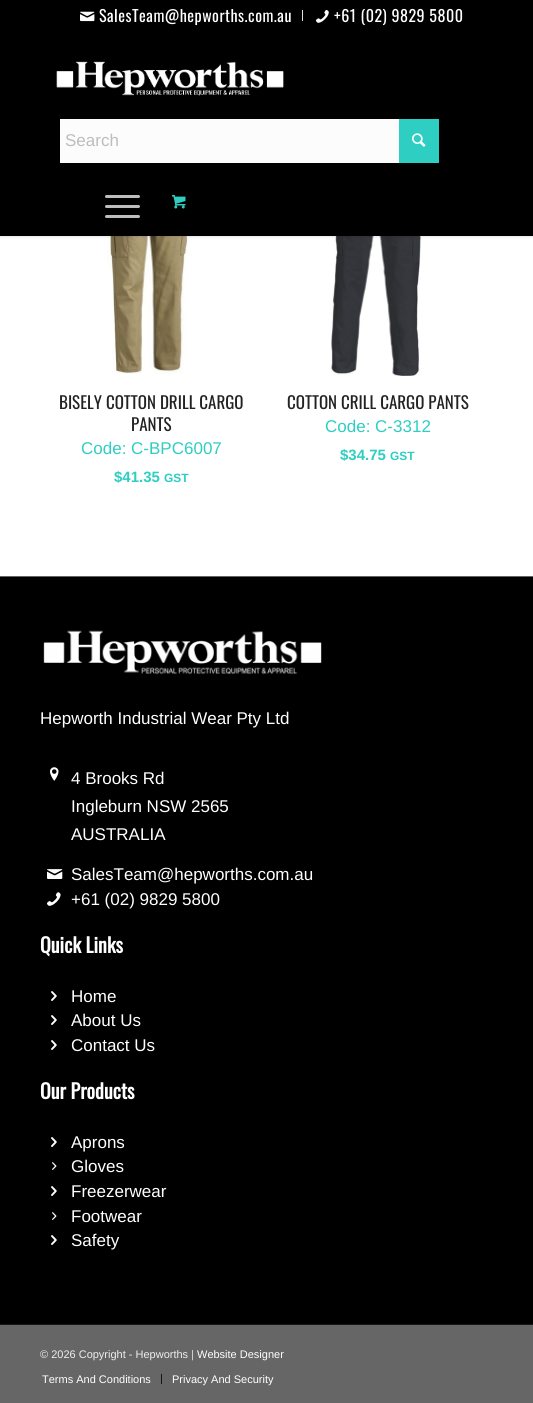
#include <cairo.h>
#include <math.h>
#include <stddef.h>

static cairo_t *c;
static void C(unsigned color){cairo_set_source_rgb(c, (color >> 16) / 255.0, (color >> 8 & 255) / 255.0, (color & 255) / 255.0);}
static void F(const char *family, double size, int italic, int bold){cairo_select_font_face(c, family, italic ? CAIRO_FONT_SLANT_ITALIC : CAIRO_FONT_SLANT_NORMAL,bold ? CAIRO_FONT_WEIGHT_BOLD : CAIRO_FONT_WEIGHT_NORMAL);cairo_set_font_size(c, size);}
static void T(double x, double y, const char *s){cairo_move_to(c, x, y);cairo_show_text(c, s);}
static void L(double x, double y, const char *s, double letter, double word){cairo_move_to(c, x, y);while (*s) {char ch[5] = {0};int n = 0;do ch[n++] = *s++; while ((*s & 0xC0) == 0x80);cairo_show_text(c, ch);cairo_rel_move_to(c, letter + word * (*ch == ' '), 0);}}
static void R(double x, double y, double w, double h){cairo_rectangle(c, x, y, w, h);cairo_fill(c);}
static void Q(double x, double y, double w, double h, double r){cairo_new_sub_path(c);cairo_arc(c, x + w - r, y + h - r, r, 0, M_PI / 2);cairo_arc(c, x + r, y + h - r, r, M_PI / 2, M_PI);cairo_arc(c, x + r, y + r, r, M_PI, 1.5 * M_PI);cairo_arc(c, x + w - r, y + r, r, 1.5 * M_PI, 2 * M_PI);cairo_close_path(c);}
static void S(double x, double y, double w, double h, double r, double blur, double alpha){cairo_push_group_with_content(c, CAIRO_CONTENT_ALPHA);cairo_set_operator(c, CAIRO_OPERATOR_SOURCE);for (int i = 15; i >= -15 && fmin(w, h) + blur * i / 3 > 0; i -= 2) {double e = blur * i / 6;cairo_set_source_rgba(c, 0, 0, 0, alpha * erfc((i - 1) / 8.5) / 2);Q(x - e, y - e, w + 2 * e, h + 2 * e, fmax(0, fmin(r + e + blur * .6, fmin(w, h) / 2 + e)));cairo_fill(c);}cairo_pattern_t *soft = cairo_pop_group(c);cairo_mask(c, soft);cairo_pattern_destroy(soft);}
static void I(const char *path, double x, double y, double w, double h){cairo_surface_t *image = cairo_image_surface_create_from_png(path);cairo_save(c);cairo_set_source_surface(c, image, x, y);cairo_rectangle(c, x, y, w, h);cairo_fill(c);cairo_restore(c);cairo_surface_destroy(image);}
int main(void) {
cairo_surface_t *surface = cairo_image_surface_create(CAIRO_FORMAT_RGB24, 533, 1403);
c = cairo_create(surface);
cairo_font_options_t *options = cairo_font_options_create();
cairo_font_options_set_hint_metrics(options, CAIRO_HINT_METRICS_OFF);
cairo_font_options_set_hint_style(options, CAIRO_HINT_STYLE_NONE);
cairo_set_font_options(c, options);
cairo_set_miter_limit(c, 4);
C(0x000000);
cairo_paint(c);
C(0xffffff);
R(0,236,533,340);
I("6.png",107,236,83,138);
I("7.png",331,236,91,140);
C(0x000000);
S(-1,-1,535,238,0,1,.1);
C(0xe1e1e1);
R(302,10,1,11);
I("1.png",80,11,15,11);
F("Oswald",16,0,0);
C(0xffffff);
L(99,22,"SalesTeam@hepworths.com.au",.5,0);
I("2.png",316,10,13,13);
L(334,22,"+61 (02) 9829 5800",.5,0);
I("3.png",56,61,228,35);
C(0xfcfcfc);
R(60,119,339,44);
F("Liberation Sans",17,0,0);
C(0xbdbdbd);
T(65,146,"Search");
C(0x2ecec3);
R(399,119,40,44);
I("4.png",412,133,14,14);
C(0xbdbdbd);
Q(105,205,35,3,1.5);
cairo_fill(c);
Q(105,195,35,3,1.5);
cairo_fill(c);
Q(105,215,35,3,1.5);
cairo_fill(c);
I("5.png",172,195,14,14);
F("Oswald",17,0,0);
C(0x222222);
T(59,409,"BISELY COTTON DRILL CARGO");
T(131,431,"PANTS");
F("Liberation Sans",17,0,0);
C(0x2ecec3);
T(81,454,"Code: C-BPC6007");
F("Liberation Sans",15,0,1);
T(114,482,"$41.35");
F("Liberation Sans",12,0,1);
T(164,482,"GST");
F("Oswald",17,0,0);
C(0x222222);
T(287,409,"COTTON CRILL CARGO PANTS");
F("Liberation Sans",17,0,0);
C(0x2ecec3);
T(325,432,"Code: C-3312");
F("Liberation Sans",15,0,1);
T(340,460,"$34.75");
F("Liberation Sans",12,0,1);
T(390,460,"GST");
C(0x626365);
R(0,576,533,1);
I("8.png",43,630,279,45);
F("Liberation Sans",17,0,0);
C(0xffffff);
T(40,724,"Hepworth Industrial Wear Pty Ltd");
I("9.png",50,767,9,14);
T(71,784,"4 Brooks Rd");
T(71,812,"Ingleburn NSW 2565");
T(71,840,"AUSTRALIA");
I("10.png",47,869,16,10);
T(71,880,"SalesTeam@hepworths.com.au");
I("11.png",47,892,14,14);
T(71,905,"+61 (02) 9829 5800");
F("Oswald",20,0,1);
T(40,953,"Quick Links");
I("12.png",51,991,6,10);
F("Liberation Sans",17,0,0);
T(71,1002,"Home");
I("12.png",51,1015,6,10);
T(71,1026,"About Us");
I("12.png",51,1040,6,10);
T(71,1051,"Contact Us");
F("Oswald",20,0,1);
T(40,1099,"Our Products");
I("12.png",51,1137,6,10);
F("Liberation Sans",17,0,0);
T(71,1148,"Aprons");
I("13.png",52,1162,5,8);
T(71,1172,"Gloves");
I("12.png",51,1186,6,10);
T(71,1197,"Freezerwear");
I("13.png",52,1212,5,8);
T(71,1222,"Footwear");
I("12.png",51,1235,6,10);
T(71,1246,"Safety");
C(0x666666);
R(0,1325,533,78);
C(0x161616);
R(0,1324,533,1);
F("Liberation Sans",11,0,0);
C(0xeeeeee);
T(40,1358,"© 2026 Copyright - Hepworths |");
C(0xffffff);
T(197,1358,"Website Designer");
T(42,1383,"Terms And Conditions");
C(0x161616);
R(161,1374,1,10);
C(0xffffff);
T(172,1383,"Privacy And Security");
cairo_surface_write_to_png(surface, "o.png");
cairo_font_options_destroy(options);
cairo_destroy(c);
cairo_surface_destroy(surface);
return 0;
}
